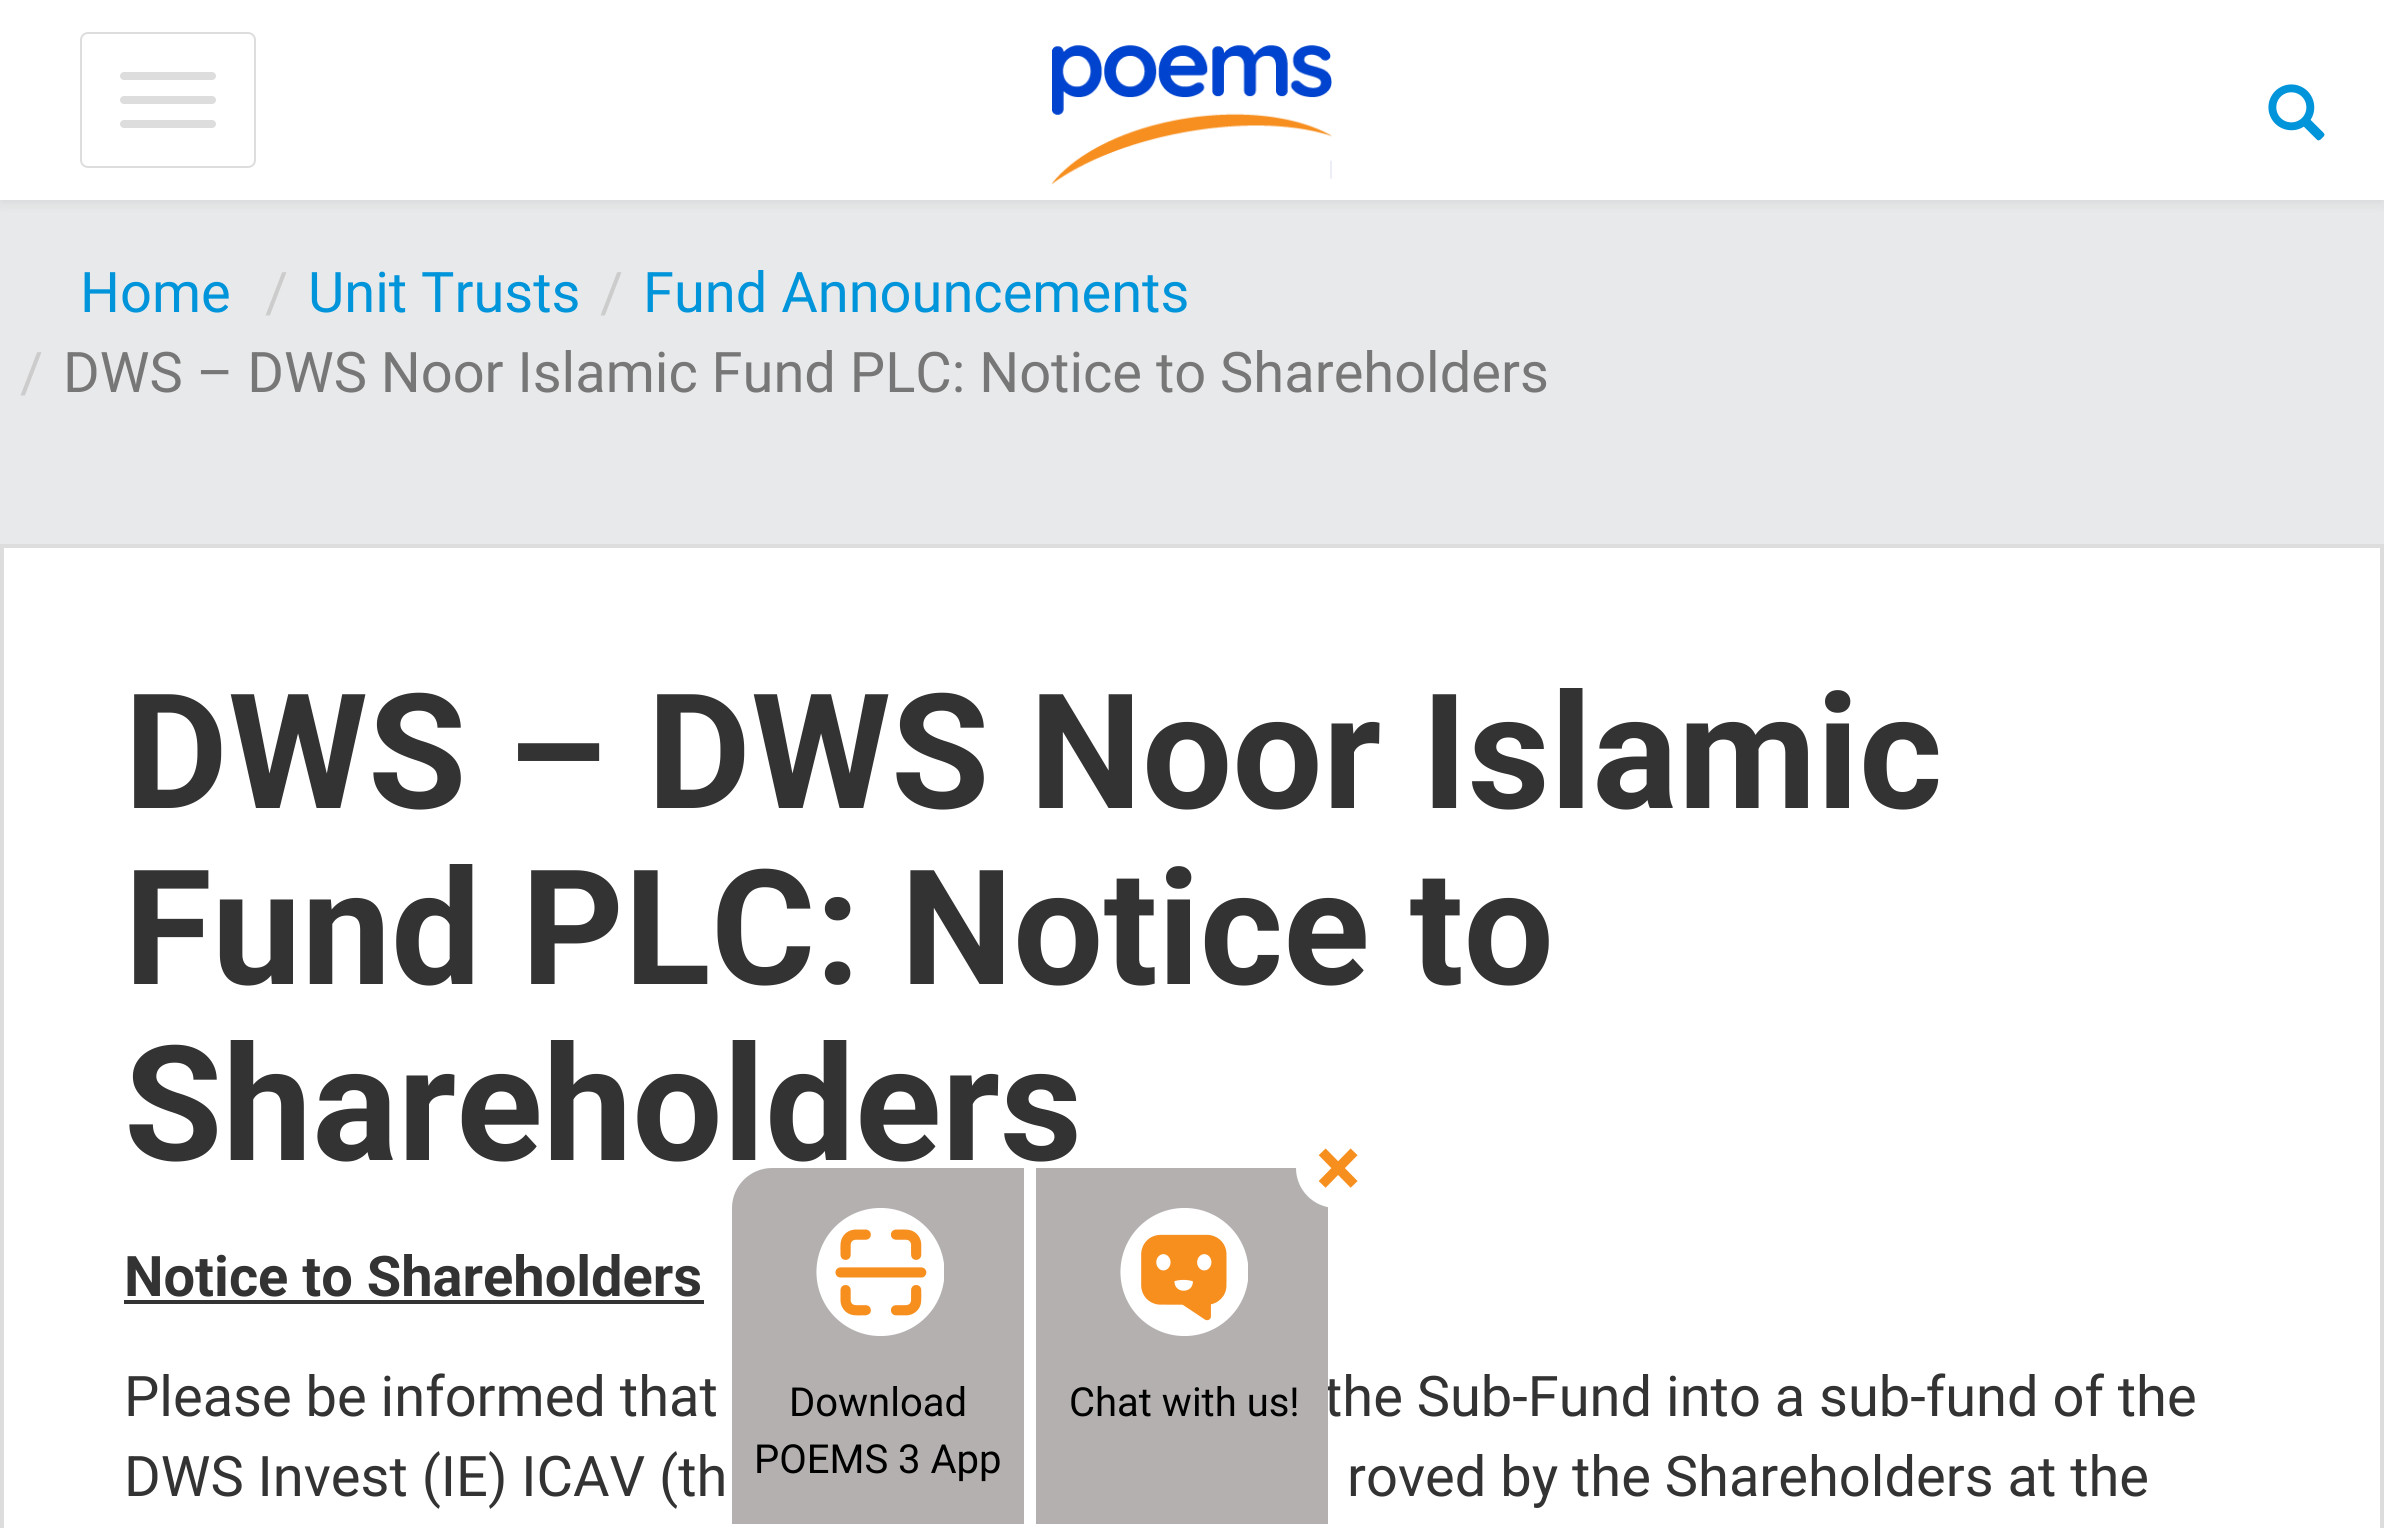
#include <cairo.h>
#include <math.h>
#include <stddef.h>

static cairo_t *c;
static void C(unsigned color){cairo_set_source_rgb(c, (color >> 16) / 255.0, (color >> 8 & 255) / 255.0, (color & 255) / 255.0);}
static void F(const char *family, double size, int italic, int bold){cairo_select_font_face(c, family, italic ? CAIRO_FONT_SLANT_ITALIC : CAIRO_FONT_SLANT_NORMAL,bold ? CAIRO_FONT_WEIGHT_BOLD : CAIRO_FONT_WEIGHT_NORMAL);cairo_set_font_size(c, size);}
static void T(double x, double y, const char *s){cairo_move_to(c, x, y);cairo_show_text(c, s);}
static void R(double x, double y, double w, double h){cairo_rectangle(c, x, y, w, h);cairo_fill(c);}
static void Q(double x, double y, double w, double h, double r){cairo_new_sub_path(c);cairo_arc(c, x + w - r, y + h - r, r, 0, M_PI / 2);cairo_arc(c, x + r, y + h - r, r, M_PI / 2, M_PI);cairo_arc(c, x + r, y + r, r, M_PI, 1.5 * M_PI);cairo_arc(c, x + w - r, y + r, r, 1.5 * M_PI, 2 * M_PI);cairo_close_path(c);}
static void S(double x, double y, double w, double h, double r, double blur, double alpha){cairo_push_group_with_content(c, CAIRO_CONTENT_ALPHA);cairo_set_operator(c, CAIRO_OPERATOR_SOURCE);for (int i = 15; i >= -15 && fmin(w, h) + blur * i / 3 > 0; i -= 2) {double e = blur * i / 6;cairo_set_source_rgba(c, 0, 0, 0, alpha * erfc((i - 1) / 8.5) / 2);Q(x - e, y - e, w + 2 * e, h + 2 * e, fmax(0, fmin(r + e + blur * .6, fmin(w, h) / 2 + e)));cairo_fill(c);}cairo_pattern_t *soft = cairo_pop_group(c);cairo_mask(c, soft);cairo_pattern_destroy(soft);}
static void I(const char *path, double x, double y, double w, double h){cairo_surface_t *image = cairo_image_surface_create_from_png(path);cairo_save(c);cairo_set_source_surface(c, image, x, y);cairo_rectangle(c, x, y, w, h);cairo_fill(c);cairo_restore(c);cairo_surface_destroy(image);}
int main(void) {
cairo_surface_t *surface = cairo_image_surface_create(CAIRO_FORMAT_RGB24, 2384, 1528);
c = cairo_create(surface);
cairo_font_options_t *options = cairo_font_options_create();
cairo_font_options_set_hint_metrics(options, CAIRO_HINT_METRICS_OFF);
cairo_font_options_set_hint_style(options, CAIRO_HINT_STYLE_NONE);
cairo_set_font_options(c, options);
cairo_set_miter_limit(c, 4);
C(0xe8e9ea);
cairo_paint(c);
C(0x000000);
S(0,4,2384,200,0,6,.07);
C(0xffffff);
R(0,0,2384,200);
Q(81,33,174,134,7);
C(0xdddddd);
cairo_stroke(c);
Q(120,72,96,8,4);
cairo_fill(c);
Q(120,96,96,8,4);
cairo_fill(c);
Q(120,120,96,8,4);
cairo_fill(c);
I("1.png",1052,45,280,140);
I("2.png",2268,84,57,57);
F("Roboto",56,0,0);
C(0x0094da);
T(80,312,"Home");
C(0xcccccc);
T(265,312,"/");
C(0x0094da);
T(308,312,"Unit Trusts");
C(0xcccccc);
T(600,312,"/");
C(0x0094da);
T(643,312,"Fund Announcements");
C(0xcccccc);
T(20,392,"/");
C(0x777777);
T(63,392,"DWS – DWS Noor Islamic Fund PLC: Notice to Shareholders");
C(0xffffff);
cairo_rectangle(c,2,546,2380,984);
cairo_fill_preserve(c);
C(0xdddddd);
cairo_set_line_width(c,4);
cairo_stroke(c);
F("Roboto",160,0,1);
C(0x333333);
T(124,808,"DWS – DWS Noor Islamic");
T(124,984,"Fund PLC: Notice to");
T(124,1160,"Shareholders");
F("Roboto",56,0,1);
T(124,1296,"Notice to Shareholders");
R(124,1300,580,4);
F("Roboto",56,0,0);
T(124,1416,"Please be informed that");
T(1324,1416,"the Sub-Fund into a sub-fund of the");
T(124,1496,"DWS Invest (IE) ICAV (th");
T(1347,1496,"roved by the Shareholders at the");
C(0xb4b0b0);
R(1036,1168,292,356);
C(0xffffff);
cairo_new_path(c);
cairo_arc(c,1336,1168,40,0,2 * M_PI);
cairo_fill(c);
F("Roboto",84,0,1);
C(0xf78f1f);
T(1316,1196,"×");
C(0xb4b0b0);
cairo_new_path(c);
cairo_move_to(c,772,1168);
cairo_line_to(c,1024,1168);
cairo_line_to(c,1024,1524);
cairo_line_to(c,732,1524);
cairo_line_to(c,732,1208);
cairo_curve_to(c,732,1186,750,1168,772,1168);
cairo_close_path(c);
cairo_fill(c);
I("3.png",816,1208,128,128);
F("Roboto",40,0,0);
C(0x000000);
T(789,1416,"Download");
T(754,1473,"POEMS 3 App");
I("4.png",1120,1208,128,128);
T(1069,1416,"Chat with us!");
cairo_surface_write_to_png(surface, "o.png");
cairo_font_options_destroy(options);
cairo_destroy(c);
cairo_surface_destroy(surface);
return 0;
}
